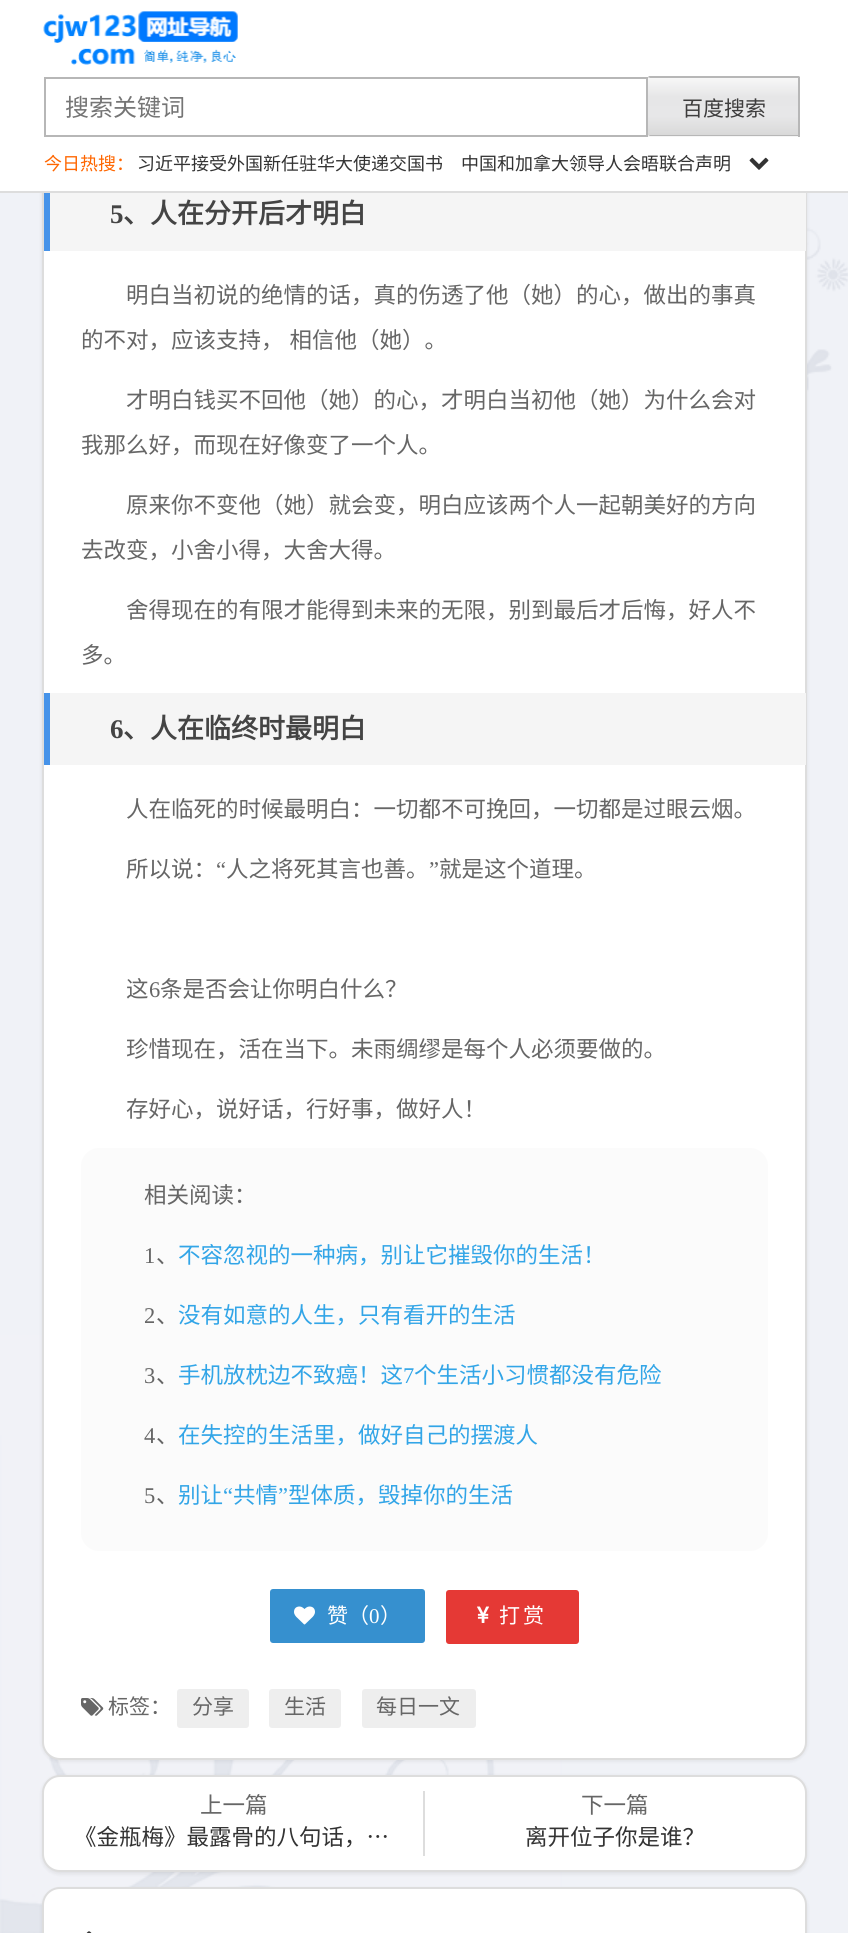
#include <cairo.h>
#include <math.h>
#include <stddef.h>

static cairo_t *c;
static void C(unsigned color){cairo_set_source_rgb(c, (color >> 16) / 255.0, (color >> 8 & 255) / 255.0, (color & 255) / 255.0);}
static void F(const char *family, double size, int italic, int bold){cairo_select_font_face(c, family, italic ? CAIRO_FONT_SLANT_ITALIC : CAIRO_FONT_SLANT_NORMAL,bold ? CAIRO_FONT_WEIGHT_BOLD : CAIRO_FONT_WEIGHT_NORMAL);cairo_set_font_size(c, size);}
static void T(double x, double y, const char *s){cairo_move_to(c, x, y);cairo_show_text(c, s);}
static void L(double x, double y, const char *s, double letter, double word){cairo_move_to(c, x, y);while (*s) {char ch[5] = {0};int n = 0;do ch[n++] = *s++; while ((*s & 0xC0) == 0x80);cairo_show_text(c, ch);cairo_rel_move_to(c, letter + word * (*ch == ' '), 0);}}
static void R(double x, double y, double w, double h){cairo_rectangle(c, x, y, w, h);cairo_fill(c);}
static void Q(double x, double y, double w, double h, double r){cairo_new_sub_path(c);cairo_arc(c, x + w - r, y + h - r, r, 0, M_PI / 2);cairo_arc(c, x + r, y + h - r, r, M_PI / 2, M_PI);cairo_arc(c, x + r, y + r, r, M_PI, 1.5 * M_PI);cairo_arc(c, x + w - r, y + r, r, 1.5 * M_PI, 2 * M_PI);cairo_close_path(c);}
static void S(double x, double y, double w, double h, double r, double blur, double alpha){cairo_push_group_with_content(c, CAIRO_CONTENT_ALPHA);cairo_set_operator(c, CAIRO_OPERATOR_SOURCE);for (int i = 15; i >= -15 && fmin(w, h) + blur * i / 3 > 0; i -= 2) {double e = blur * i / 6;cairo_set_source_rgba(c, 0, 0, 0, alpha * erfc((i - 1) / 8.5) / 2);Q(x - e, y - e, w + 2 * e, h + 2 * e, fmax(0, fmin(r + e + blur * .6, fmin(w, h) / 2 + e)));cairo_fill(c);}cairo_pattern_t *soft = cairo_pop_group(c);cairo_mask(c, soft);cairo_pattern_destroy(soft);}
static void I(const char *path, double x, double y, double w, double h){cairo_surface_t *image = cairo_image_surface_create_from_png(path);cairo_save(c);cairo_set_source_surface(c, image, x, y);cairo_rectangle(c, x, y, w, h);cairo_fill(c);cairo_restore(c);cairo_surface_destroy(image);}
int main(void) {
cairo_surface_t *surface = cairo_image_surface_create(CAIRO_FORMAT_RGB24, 848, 1933);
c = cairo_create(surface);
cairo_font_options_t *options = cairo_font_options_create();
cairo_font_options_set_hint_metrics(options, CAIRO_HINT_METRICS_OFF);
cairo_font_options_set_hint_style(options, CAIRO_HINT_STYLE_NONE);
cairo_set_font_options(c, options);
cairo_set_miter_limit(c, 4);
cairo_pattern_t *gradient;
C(0xf0f2f7);
cairo_paint(c);
I("1.png",0,193,848,1740);
C(0x000000);
S(42,-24,765,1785,18,2,.08);
C(0xffffff);
Q(43,-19,763,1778,17);
cairo_fill_preserve(c);
C(0xdddddd);
cairo_stroke(c);
C(0xffffff);
R(0,0,848,191);
C(0xdddddd);
R(0,191,848,2);
I("2.png",43,11,195,54);
cairo_save(c);
cairo_rectangle(c,44,2,198,75);
cairo_clip(c);
gradient = cairo_pattern_create_linear(241,39,310,39);
cairo_pattern_add_color_stop_rgba(gradient,0,1,1,1,.02);
cairo_pattern_add_color_stop_rgba(gradient,.5,1,1,1,.58);
cairo_pattern_add_color_stop_rgba(gradient,1,1,1,1,.02);
cairo_set_source(c,gradient);
cairo_pattern_destroy(gradient);
cairo_new_path(c);
cairo_move_to(c,263,2);
cairo_line_to(c,332,2);
cairo_line_to(c,289,76);
cairo_line_to(c,220,76);
cairo_close_path(c);
cairo_fill(c);
cairo_restore(c);
cairo_rectangle(c,45,78,602,58);
C(0xb7b7b7);
cairo_stroke(c);
F("Noto Sans CJK SC",24,0,0);
C(0x757575);
T(65,116,"搜索关键词");
gradient = cairo_pattern_create_linear(724,78,724,21);
cairo_pattern_add_color_stop_rgba(gradient,0,0.851,0.851,0.851,1);
cairo_pattern_add_color_stop_rgba(gradient,.33,0.906,0.906,0.91,1);
cairo_pattern_add_color_stop_rgba(gradient,.67,0.902,0.902,0.906,1);
cairo_pattern_add_color_stop_rgba(gradient,1,0.969,0.969,0.969,1);
cairo_set_source(c,gradient);
cairo_pattern_destroy(gradient);
R(648,77,2,1);
gradient = cairo_pattern_create_linear(724,135,724,78);
cairo_pattern_add_color_stop_rgba(gradient,0,0.851,0.851,0.851,1);
cairo_pattern_add_color_stop_rgba(gradient,.33,0.906,0.906,0.91,1);
cairo_pattern_add_color_stop_rgba(gradient,.67,0.902,0.902,0.906,1);
cairo_pattern_add_color_stop_rgba(gradient,1,0.969,0.969,0.969,1);
cairo_set_source(c,gradient);
cairo_pattern_destroy(gradient);
R(648,78,150,57);
gradient = cairo_pattern_create_linear(724,192,724,135);
cairo_pattern_add_color_stop_rgba(gradient,0,0.851,0.851,0.851,1);
cairo_pattern_add_color_stop_rgba(gradient,.33,0.906,0.906,0.91,1);
cairo_pattern_add_color_stop_rgba(gradient,.67,0.902,0.902,0.906,1);
cairo_pattern_add_color_stop_rgba(gradient,1,0.969,0.969,0.969,1);
cairo_set_source(c,gradient);
cairo_pattern_destroy(gradient);
R(648,135,152,2);
C(0xb7b7b7);
cairo_new_path(c);
cairo_move_to(c,648,76);
cairo_line_to(c,800,76);
cairo_line_to(c,798,78);
cairo_line_to(c,650,78);
cairo_close_path(c);
cairo_fill(c);
R(798,77,2,60);
cairo_new_path(c);
cairo_move_to(c,800,136);
cairo_line_to(c,648,136);
cairo_line_to(c,650,135);
cairo_line_to(c,798,135);
cairo_close_path(c);
cairo_fill(c);
F("Noto Sans CJK SC",21,0,0);
C(0x3e3d3d);
T(682,116,"百度搜索");
F("Noto Sans CJK SC",18,0,0);
C(0xff6600);
T(44,170,"今日热搜：");
C(0x333333);
T(137,170,"习近平接受外国新任驻华大使递交国书");
T(461,170,"中国和加拿大领导人会晤联合声明");
I("3.png",749,157,20,13);
C(0xf5f5f5);
R(50,193,756,58);
C(0x4693e9);
R(44,193,6,58);
F("Liberation Serif",27,0,1);
C(0x444444);
T(110,223,"5");
F("Noto Sans CJK SC",27,0,1);
T(123,223,"、人在分开后才明白");
F("Noto Sans CJK SC",22.5,0,0);
C(0x666666);
T(126,303,"明白当初说的绝情的话，真的伤透了他（她）的心，做出的事真");
L(81,348,"的不对，应该支持， 相信他（她）。",0,1);
T(126,408,"才明白钱买不回他（她）的心，才明白当初他（她）为什么会对");
T(81,453,"我那么好，而现在好像变了一个人。");
T(126,513,"原来你不变他（她）就会变，明白应该两个人一起朝美好的方向");
T(81,558,"去改变，小舍小得，大舍大得。");
T(126,618,"舍得现在的有限才能得到未来的无限，别到最后才后悔，好人不");
T(81,663,"多。");
C(0xf5f5f5);
R(50,693,756,72);
C(0x4693e9);
R(44,693,6,72);
F("Liberation Serif",27,0,1);
C(0x444444);
T(110,738,"6");
F("Noto Sans CJK SC",27,0,1);
T(123,738,"、人在临终时最明白");
F("Noto Sans CJK SC",22.5,0,0);
C(0x666666);
T(126,817,"人在临死的时候最明白：一切都不可挽回，一切都是过眼云烟。");
T(126,877,"所以说：");
F("Liberation Serif",22.5,0,0);
T(216,877,"“");
F("Noto Sans CJK SC",22.5,0,0);
T(226,877,"人之将死其言也善。");
F("Liberation Serif",22.5,0,0);
T(429,877,"”");
F("Noto Sans CJK SC",22.5,0,0);
T(439,877,"就是这个道理。");
T(126,997,"这");
F("Liberation Serif",22.5,0,0);
T(149,997,"6");
F("Noto Sans CJK SC",22.5,0,0);
T(160,997,"条是否会让你明白什么？");
T(126,1057,"珍惜现在，活在当下。未雨绸缪是每个人必须要做的。");
T(126,1117,"存好心，说好话，行好事，做好人！");
C(0xfbfbfb);
Q(81,1148,687,403,18);
cairo_fill(c);
C(0x666666);
T(144,1203,"相关阅读：");
F("Liberation Serif",22.5,0,0);
T(144,1263,"1");
F("Noto Sans CJK SC",22.5,0,0);
T(156,1263,"、");
C(0x32a5e7);
T(178,1263,"不容忽视的一种病，别让它摧毁你的生活！");
F("Liberation Serif",22.5,0,0);
C(0x666666);
T(144,1323,"2");
F("Noto Sans CJK SC",22.5,0,0);
T(156,1323,"、");
C(0x32a5e7);
T(178,1323,"没有如意的人生，只有看开的生活");
F("Liberation Serif",22.5,0,0);
C(0x666666);
T(144,1383,"3");
F("Noto Sans CJK SC",22.5,0,0);
T(156,1383,"、");
C(0x32a5e7);
T(178,1383,"手机放枕边不致癌！这");
F("Liberation Serif",22.5,0,0);
T(403,1383,"7");
F("Noto Sans CJK SC",22.5,0,0);
T(414,1383,"个生活小习惯都没有危险");
F("Liberation Serif",22.5,0,0);
C(0x666666);
T(144,1443,"4");
F("Noto Sans CJK SC",22.5,0,0);
T(156,1443,"、");
C(0x32a5e7);
T(178,1443,"在失控的生活里，做好自己的摆渡人");
F("Liberation Serif",22.5,0,0);
C(0x666666);
T(144,1503,"5");
F("Noto Sans CJK SC",22.5,0,0);
C(0x32a5e7);
T(178,1503,"别让");
F("Liberation Serif",22.5,0,0);
T(223,1503,"“");
F("Noto Sans CJK SC",22.5,0,0);
T(233,1503,"共情");
F("Liberation Serif",22.5,0,0);
T(278,1503,"”");
F("Noto Sans CJK SC",22.5,0,0);
T(288,1503,"型体质，毁掉你的生活");
C(0x666666);
T(156,1503,"、");
C(0x3690cf);
Q(271,1590,153,52,2);
cairo_fill_preserve(c);
cairo_stroke(c);
I("4.png",294,1606,21,19);
F("Noto Sans CJK SC",21,0,0);
C(0xffffff);
T(327,1623,"赞（");
F("Liberation Serif",21,0,0);
T(369,1623,"0");
F("Noto Sans CJK SC",21,0,0);
T(380,1623,"）");
C(0xe53935);
Q(447,1591,131,52,2);
cairo_fill_preserve(c);
cairo_stroke(c);
I("5.png",477,1606,12,17);
C(0xffffff);
L(499,1623,"打赏",3,0);
I("6.png",81,1698,23,18);
C(0x666666);
T(108,1714,"标签：");
C(0xeeeeee);
Q(177,1689,72,39,3);
cairo_fill(c);
C(0x666666);
T(192,1714,"分享");
C(0xeeeeee);
Q(269,1689,72,39,3);
cairo_fill(c);
C(0x666666);
T(284,1714,"生活");
C(0xeeeeee);
Q(362,1689,114,39,3);
cairo_fill(c);
C(0x666666);
T(376,1714,"每日一文");
C(0x000000);
S(42,1776,765,98,18,2,.08);
C(0xffffff);
Q(43,1776,763,95,17);
cairo_fill_preserve(c);
C(0xdddddd);
cairo_stroke(c);
R(423,1791,2,65);
F("Noto Sans CJK SC",22.5,0,0);
C(0x666666);
T(200,1813,"上一篇");
C(0x333333);
T(74,1845,"《金瓶梅》最露骨的八句话，…");
C(0x666666);
T(581,1813,"下一篇");
C(0x333333);
T(525,1845,"离开位子你是谁？");
C(0x000000);
S(42,1889,765,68,18,2,.08);
C(0xffffff);
Q(43,1888,763,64,17);
cairo_fill_preserve(c);
C(0xdddddd);
cairo_stroke(c);
I("7.png",86,1931,6,2);
cairo_surface_write_to_png(surface, "o.png");
cairo_font_options_destroy(options);
cairo_destroy(c);
cairo_surface_destroy(surface);
return 0;
}
